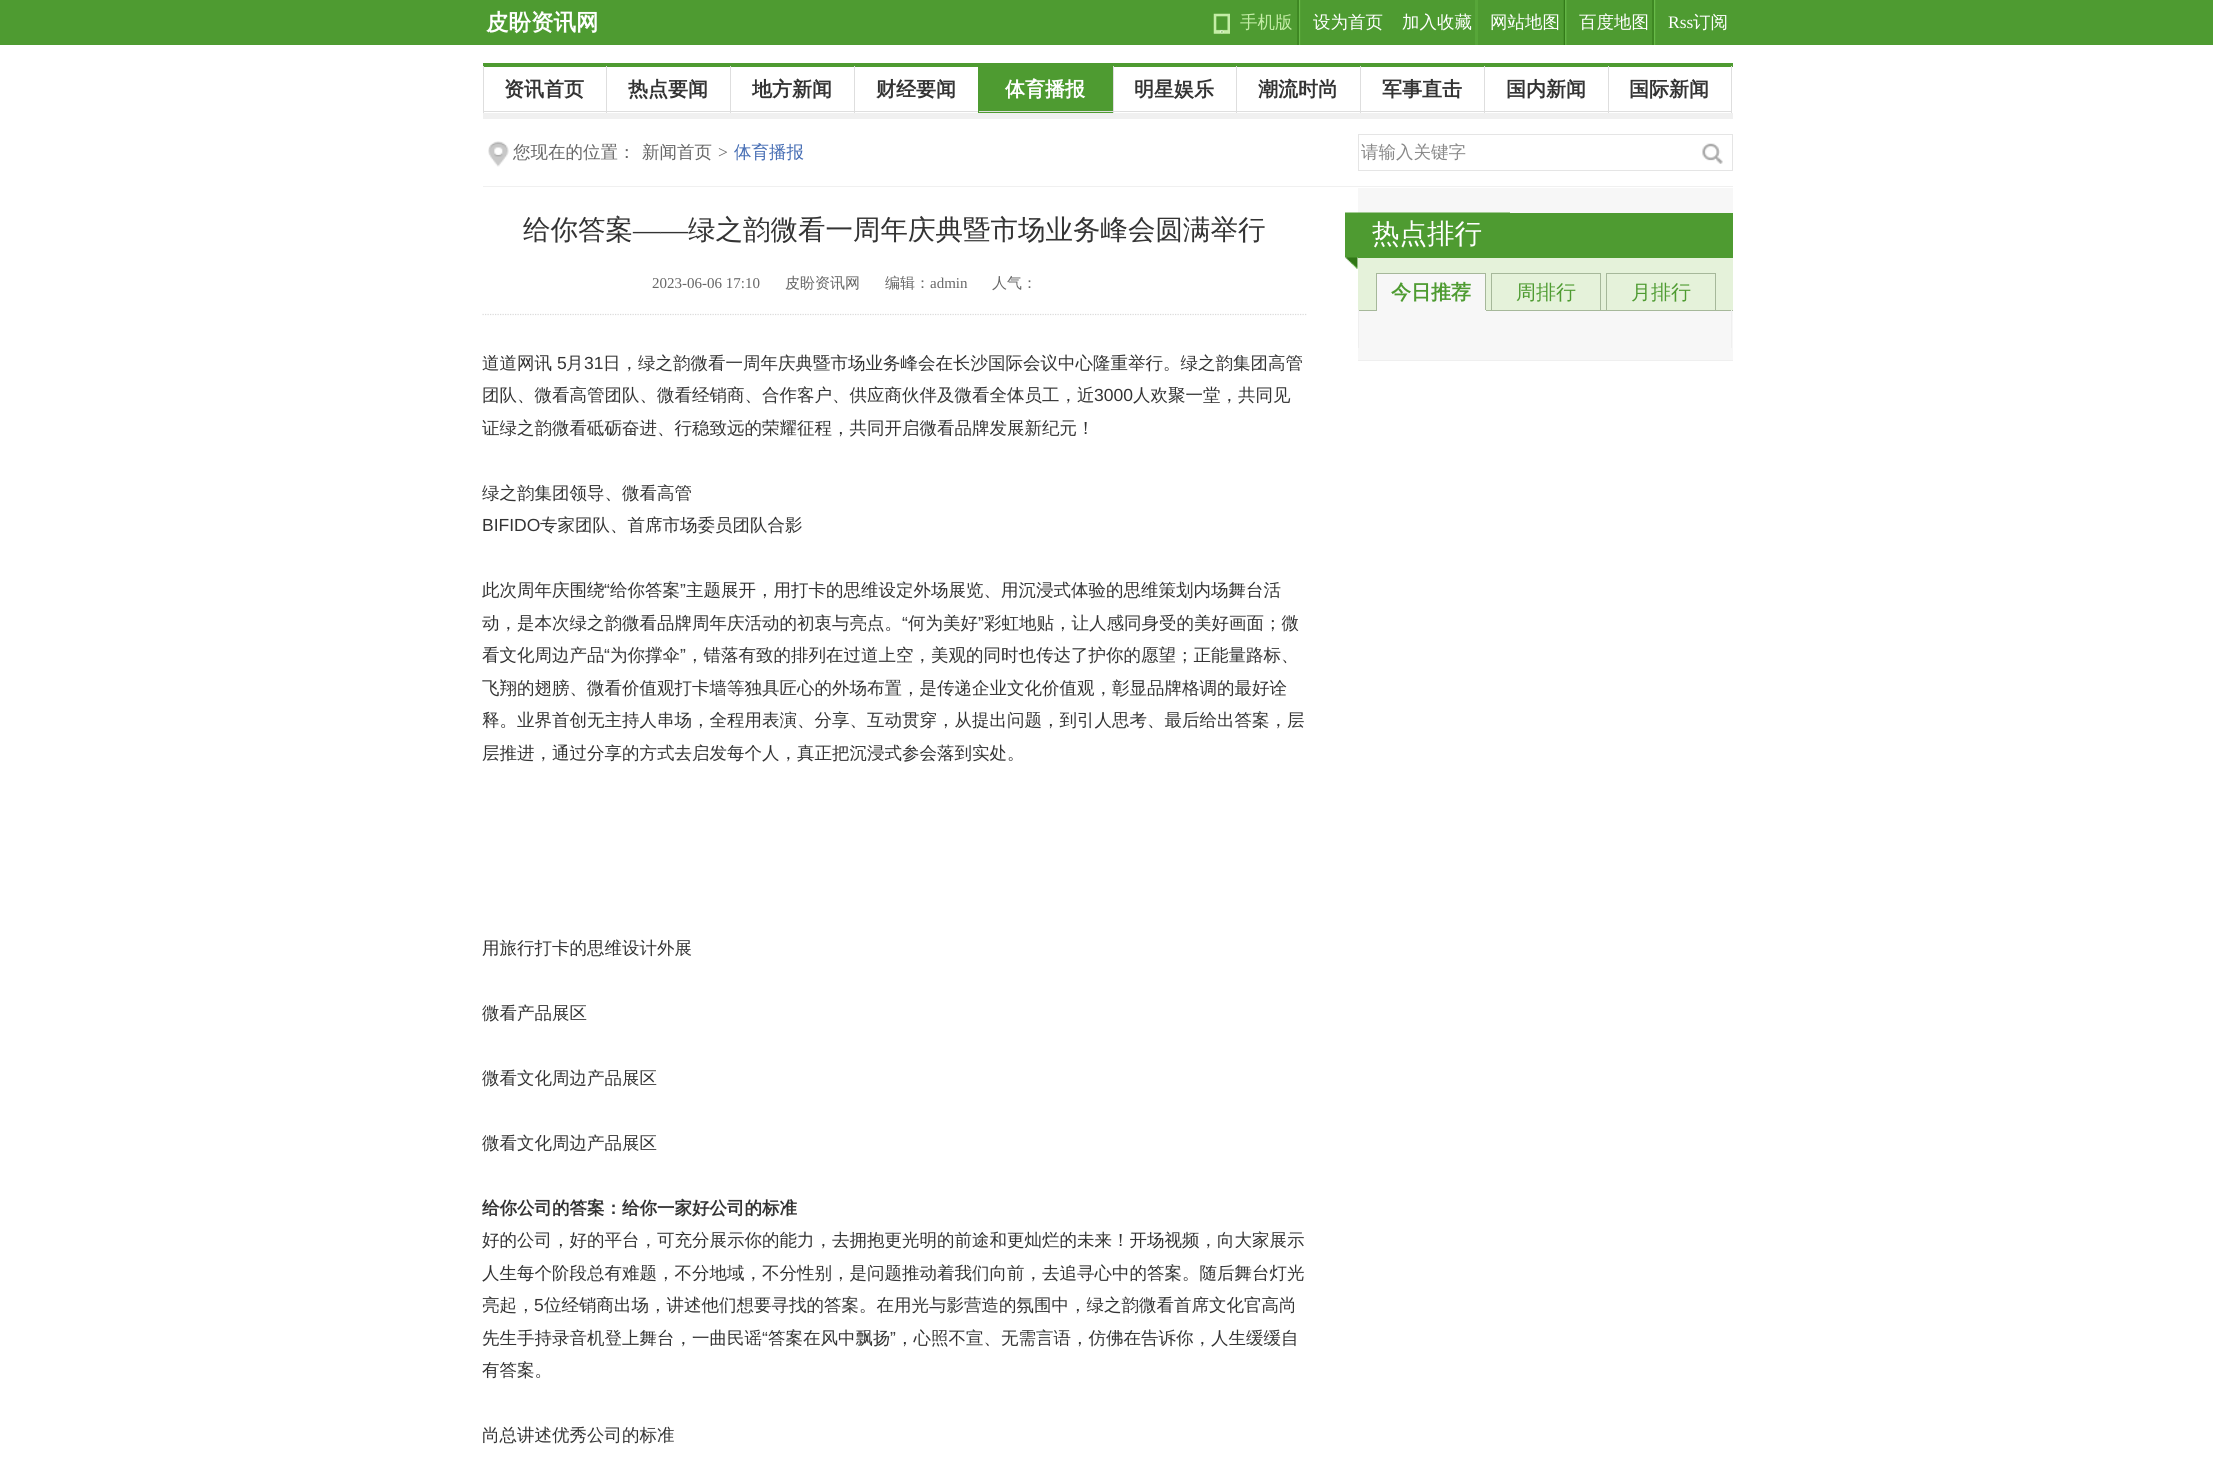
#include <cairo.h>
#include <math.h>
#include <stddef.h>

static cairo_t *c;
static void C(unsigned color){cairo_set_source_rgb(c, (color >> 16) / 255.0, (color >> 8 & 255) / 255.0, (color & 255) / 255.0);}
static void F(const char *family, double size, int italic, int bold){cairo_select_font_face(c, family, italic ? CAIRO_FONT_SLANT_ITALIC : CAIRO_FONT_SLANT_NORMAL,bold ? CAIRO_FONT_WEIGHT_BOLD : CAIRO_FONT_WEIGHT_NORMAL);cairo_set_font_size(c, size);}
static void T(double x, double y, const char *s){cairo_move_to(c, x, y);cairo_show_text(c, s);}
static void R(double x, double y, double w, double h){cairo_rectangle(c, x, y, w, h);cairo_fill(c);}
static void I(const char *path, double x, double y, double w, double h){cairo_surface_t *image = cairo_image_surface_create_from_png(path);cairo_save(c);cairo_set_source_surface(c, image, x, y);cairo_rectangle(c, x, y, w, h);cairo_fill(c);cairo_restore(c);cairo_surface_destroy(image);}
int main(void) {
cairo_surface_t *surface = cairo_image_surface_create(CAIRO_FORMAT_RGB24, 2213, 1478);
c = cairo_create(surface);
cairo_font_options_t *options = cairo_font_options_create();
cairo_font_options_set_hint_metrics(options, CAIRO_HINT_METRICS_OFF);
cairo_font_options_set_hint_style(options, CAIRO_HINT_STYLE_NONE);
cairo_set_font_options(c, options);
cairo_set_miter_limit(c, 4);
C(0xffffff);
cairo_paint(c);
C(0x4e9b31);
R(0,0,2213,45);
F("WenQuanYi Zen Hei",22.5,0,1);
C(0xffffff);
T(486,30,"皮盼资讯网");
I("1.png",1213,13,17,21);
F("WenQuanYi Zen Hei Medium",17.5,0,0);
C(0xc4eda6);
T(1240,28,"手机版");
I("2.png",1297,0,4,45);
C(0xffffff);
T(1313,28,"设为首页");
T(1402,28,"加入收藏");
C(0x57a639);
R(1475,0,3,45);
C(0xffffff);
T(1490,28,"网站地图");
I("3.png",1563,0,4,45);
T(1579,28,"百度地图");
I("4.png",1652,0,4,45);
F("Liberation Serif",17.5,0,0);
T(1668,28,"Rss");
F("WenQuanYi Zen Hei Medium",17.5,0,0);
T(1693,28,"订阅");
C(0x4e9b31);
R(483,63,1250,4);
C(0xf0f0f0);
R(483,113,1250,6);
C(0xdedede);
R(1731,66,1,47);
R(483,111,495,1);
R(483,66,1,47);
F("WenQuanYi Zen Hei",20,0,1);
C(0x333333);
T(504,96,"资讯首页");
C(0xdedede);
R(606,66,1,47);
C(0x333333);
T(628,96,"热点要闻");
C(0xdedede);
R(730,66,1,47);
C(0x333333);
T(752,96,"地方新闻");
C(0xdedede);
R(854,66,1,47);
C(0x333333);
T(876,96,"财经要闻");
C(0x4e9b31);
R(979,67,134,46);
C(0xdedede);
R(978,111,753,1);
C(0x4e9b31);
R(978,66,1,47);
C(0xffffff);
T(1005,96,"体育播报");
C(0xdedede);
R(1113,66,1,47);
C(0x333333);
T(1134,96,"明星娱乐");
C(0xdedede);
R(1236,66,1,47);
C(0x333333);
T(1258,96,"潮流时尚");
C(0xdedede);
R(1360,66,1,47);
C(0x333333);
T(1382,96,"军事直击");
C(0xdedede);
R(1484,66,1,47);
C(0x333333);
T(1506,96,"国内新闻");
C(0xdedede);
R(1608,66,1,47);
C(0x333333);
T(1629,96,"国际新闻");
I("5.png",488,141,21,26);
C(0xf0f0f0);
R(483,186,1250,1);
F("WenQuanYi Zen Hei Medium",17.5,0,0);
C(0x666666);
T(513,158,"您现在的位置：");
T(642,158,"新闻首页");
F("Liberation Serif",17.5,0,0);
T(718,158,">");
F("WenQuanYi Zen Hei Medium",17.5,0,0);
C(0x446cb3);
T(734,158,"体育播报");
cairo_rectangle(c,1358.5,134.5,374,36);
C(0xe5e5e5);
cairo_set_line_width(c,1);
cairo_stroke(c);
C(0x888888);
T(1361,158,"请输入关键字");
I("6.png",1702,143,21,21);
F("WenQuanYi Zen Hei Medium",27.5,0,0);
C(0x333333);
T(523,239,"给你答案");
F("Liberation Serif",27.5,0,0);
T(633,239,"——");
F("WenQuanYi Zen Hei Medium",27.5,0,0);
T(688,239,"绿之韵微看一周年庆典暨市场业务峰会圆满举行");
cairo_new_path(c);
cairo_move_to(c,482.5,314.5);
cairo_line_to(c,1307.5,314.5);
C(0xdbdbdb);
cairo_set_line_width(c,1.2);
cairo_set_dash(c,(double[]){1.25,1.25},2,0);
cairo_stroke(c);
F("Liberation Serif",15,0,0);
C(0x666666);
T(652,288,"2023-06-06 17:10");
F("WenQuanYi Zen Hei Medium",15,0,0);
T(785,288,"皮盼资讯网");
T(885,288,"编辑：");
F("Liberation Serif",15,0,0);
T(930,288,"admin");
F("WenQuanYi Zen Hei Medium",15,0,0);
T(992,288,"人气：");
F("WenQuanYi Zen Hei Medium",17.5,0,0);
C(0x333333);
T(482,369,"道道网讯");
F("Liberation Sans",17.5,0,0);
T(557,369,"5");
F("WenQuanYi Zen Hei Medium",17.5,0,0);
T(566,369,"月");
F("Liberation Sans",17.5,0,0);
T(584,369,"31");
F("WenQuanYi Zen Hei Medium",17.5,0,0);
T(603,369,"日，绿之韵微看一周年庆典暨市场业务峰会在长沙国际会议中心隆重举行。绿之韵集团高管");
T(482,401,"团队、微看高管团队、微看经销商、合作客户、供应商伙伴及微看全体员工，近");
F("Liberation Sans",17.5,0,0);
T(1094,401,"3000");
F("WenQuanYi Zen Hei Medium",17.5,0,0);
T(1133,401,"人欢聚一堂，共同见");
T(482,434,"证绿之韵微看砥砺奋进、行稳致远的荣耀征程，共同开启微看品牌发展新纪元！");
T(482,499,"绿之韵集团领导、微看高管");
F("Liberation Sans",17.5,0,0);
T(482,531,"BIFIDO");
F("WenQuanYi Zen Hei Medium",17.5,0,0);
T(540,531,"专家团队、首席市场委员团队合影");
T(482,596,"此次周年庆围绕");
F("Liberation Sans",17.5,0,0);
T(604,596,"“");
F("WenQuanYi Zen Hei Medium",17.5,0,0);
T(610,596,"给你答案");
F("Liberation Sans",17.5,0,0);
T(680,596,"”");
F("WenQuanYi Zen Hei Medium",17.5,0,0);
T(686,596,"主题展开，用打卡的思维设定外场展览、用沉浸式体验的思维策划内场舞台活");
T(482,629,"动，是本次绿之韵微看品牌周年庆活动的初衷与亮点。");
F("Liberation Sans",17.5,0,0);
T(902,629,"“");
F("WenQuanYi Zen Hei Medium",17.5,0,0);
T(908,629,"何为美好");
F("Liberation Sans",17.5,0,0);
T(978,629,"”");
F("WenQuanYi Zen Hei Medium",17.5,0,0);
T(984,629,"彩虹地贴，让人感同身受的美好画面；微");
T(482,661,"看文化周边产品");
F("Liberation Sans",17.5,0,0);
T(604,661,"“");
F("WenQuanYi Zen Hei Medium",17.5,0,0);
T(610,661,"为你撑伞");
F("Liberation Sans",17.5,0,0);
T(680,661,"”");
F("WenQuanYi Zen Hei Medium",17.5,0,0);
T(686,661,"，错落有致的排列在过道上空，美观的同时也传达了护你的愿望；正能量路标、");
T(482,694,"飞翔的翅膀、微看价值观打卡墙等独具匠心的外场布置，是传递企业文化价值观，彰显品牌格调的最好诠");
T(482,726,"释。业界首创无主持人串场，全程用表演、分享、互动贯穿，从提出问题，到引人思考、最后给出答案，层");
T(482,759,"层推进，通过分享的方式去启发每个人，真正把沉浸式参会落到实处。");
T(482,954,"用旅行打卡的思维设计外展");
T(482,1019,"微看产品展区");
T(482,1084,"微看文化周边产品展区");
T(482,1149,"微看文化周边产品展区");
F("WenQuanYi Zen Hei",17.5,0,1);
T(482,1214,"给你公司的答案：给你一家好公司的标准");
F("WenQuanYi Zen Hei Medium",17.5,0,0);
T(482,1246,"好的公司，好的平台，可充分展示你的能力，去拥抱更光明的前途和更灿烂的未来！开场视频，向大家展示");
T(482,1279,"人生每个阶段总有难题，不分地域，不分性别，是问题推动着我们向前，去追寻心中的答案。随后舞台灯光");
T(482,1311,"亮起，");
F("Liberation Sans",17.5,0,0);
T(534,1311,"5");
F("WenQuanYi Zen Hei Medium",17.5,0,0);
T(544,1311,"位经销商出场，讲述他们想要寻找的答案。在用光与影营造的氛围中，绿之韵微看首席文化官高尚");
T(482,1344,"先生手持录音机登上舞台，一曲民谣");
F("Liberation Sans",17.5,0,0);
T(762,1344,"“");
F("WenQuanYi Zen Hei Medium",17.5,0,0);
T(768,1344,"答案在风中飘扬");
F("Liberation Sans",17.5,0,0);
T(890,1344,"”");
F("WenQuanYi Zen Hei Medium",17.5,0,0);
T(896,1344,"，心照不宣、无需言语，仿佛在告诉你，人生缓缓自");
T(482,1376,"有答案。");
T(482,1441,"尚总讲述优秀公司的标准");
C(0xf7f7f7);
R(1358,188,375,172);
C(0xefefef);
R(1358,360,375,1);
C(0x4e9b31);
R(1358,213,375,45);
I("7.png",1345,212,165,57);
F("WenQuanYi Zen Hei Medium",27.5,0,0);
C(0xffffff);
T(1372,243,"热点排行");
C(0xe5f2da);
R(1358,258,375,52);
C(0xf7f7f7);
R(1377,274,108,36);
C(0xa6b89a);
R(1376,273,110,1);
R(1358,310,375,1);
R(1485,273,1,38);
C(0xf7f7f7);
R(1376,310,110,1);
C(0xa6b89a);
R(1376,273,1,38);
F("WenQuanYi Zen Hei",20,0,1);
C(0x4e9b31);
T(1391,299,"今日推荐");
C(0xa6b89a);
R(1491,273,110,1);
R(1600,273,1,37);
R(1491,273,1,37);
F("WenQuanYi Zen Hei Medium",20,0,0);
C(0x4e9b31);
T(1516,299,"周排行");
C(0xa6b89a);
R(1606,273,110,1);
R(1715,273,1,37);
R(1606,273,1,37);
C(0x4e9b31);
T(1631,299,"月排行");
C(0xefefef);
R(1731,310,1,38);
R(1358,310,1,38);
cairo_surface_write_to_png(surface, "o.png");
cairo_font_options_destroy(options);
cairo_destroy(c);
cairo_surface_destroy(surface);
return 0;
}
